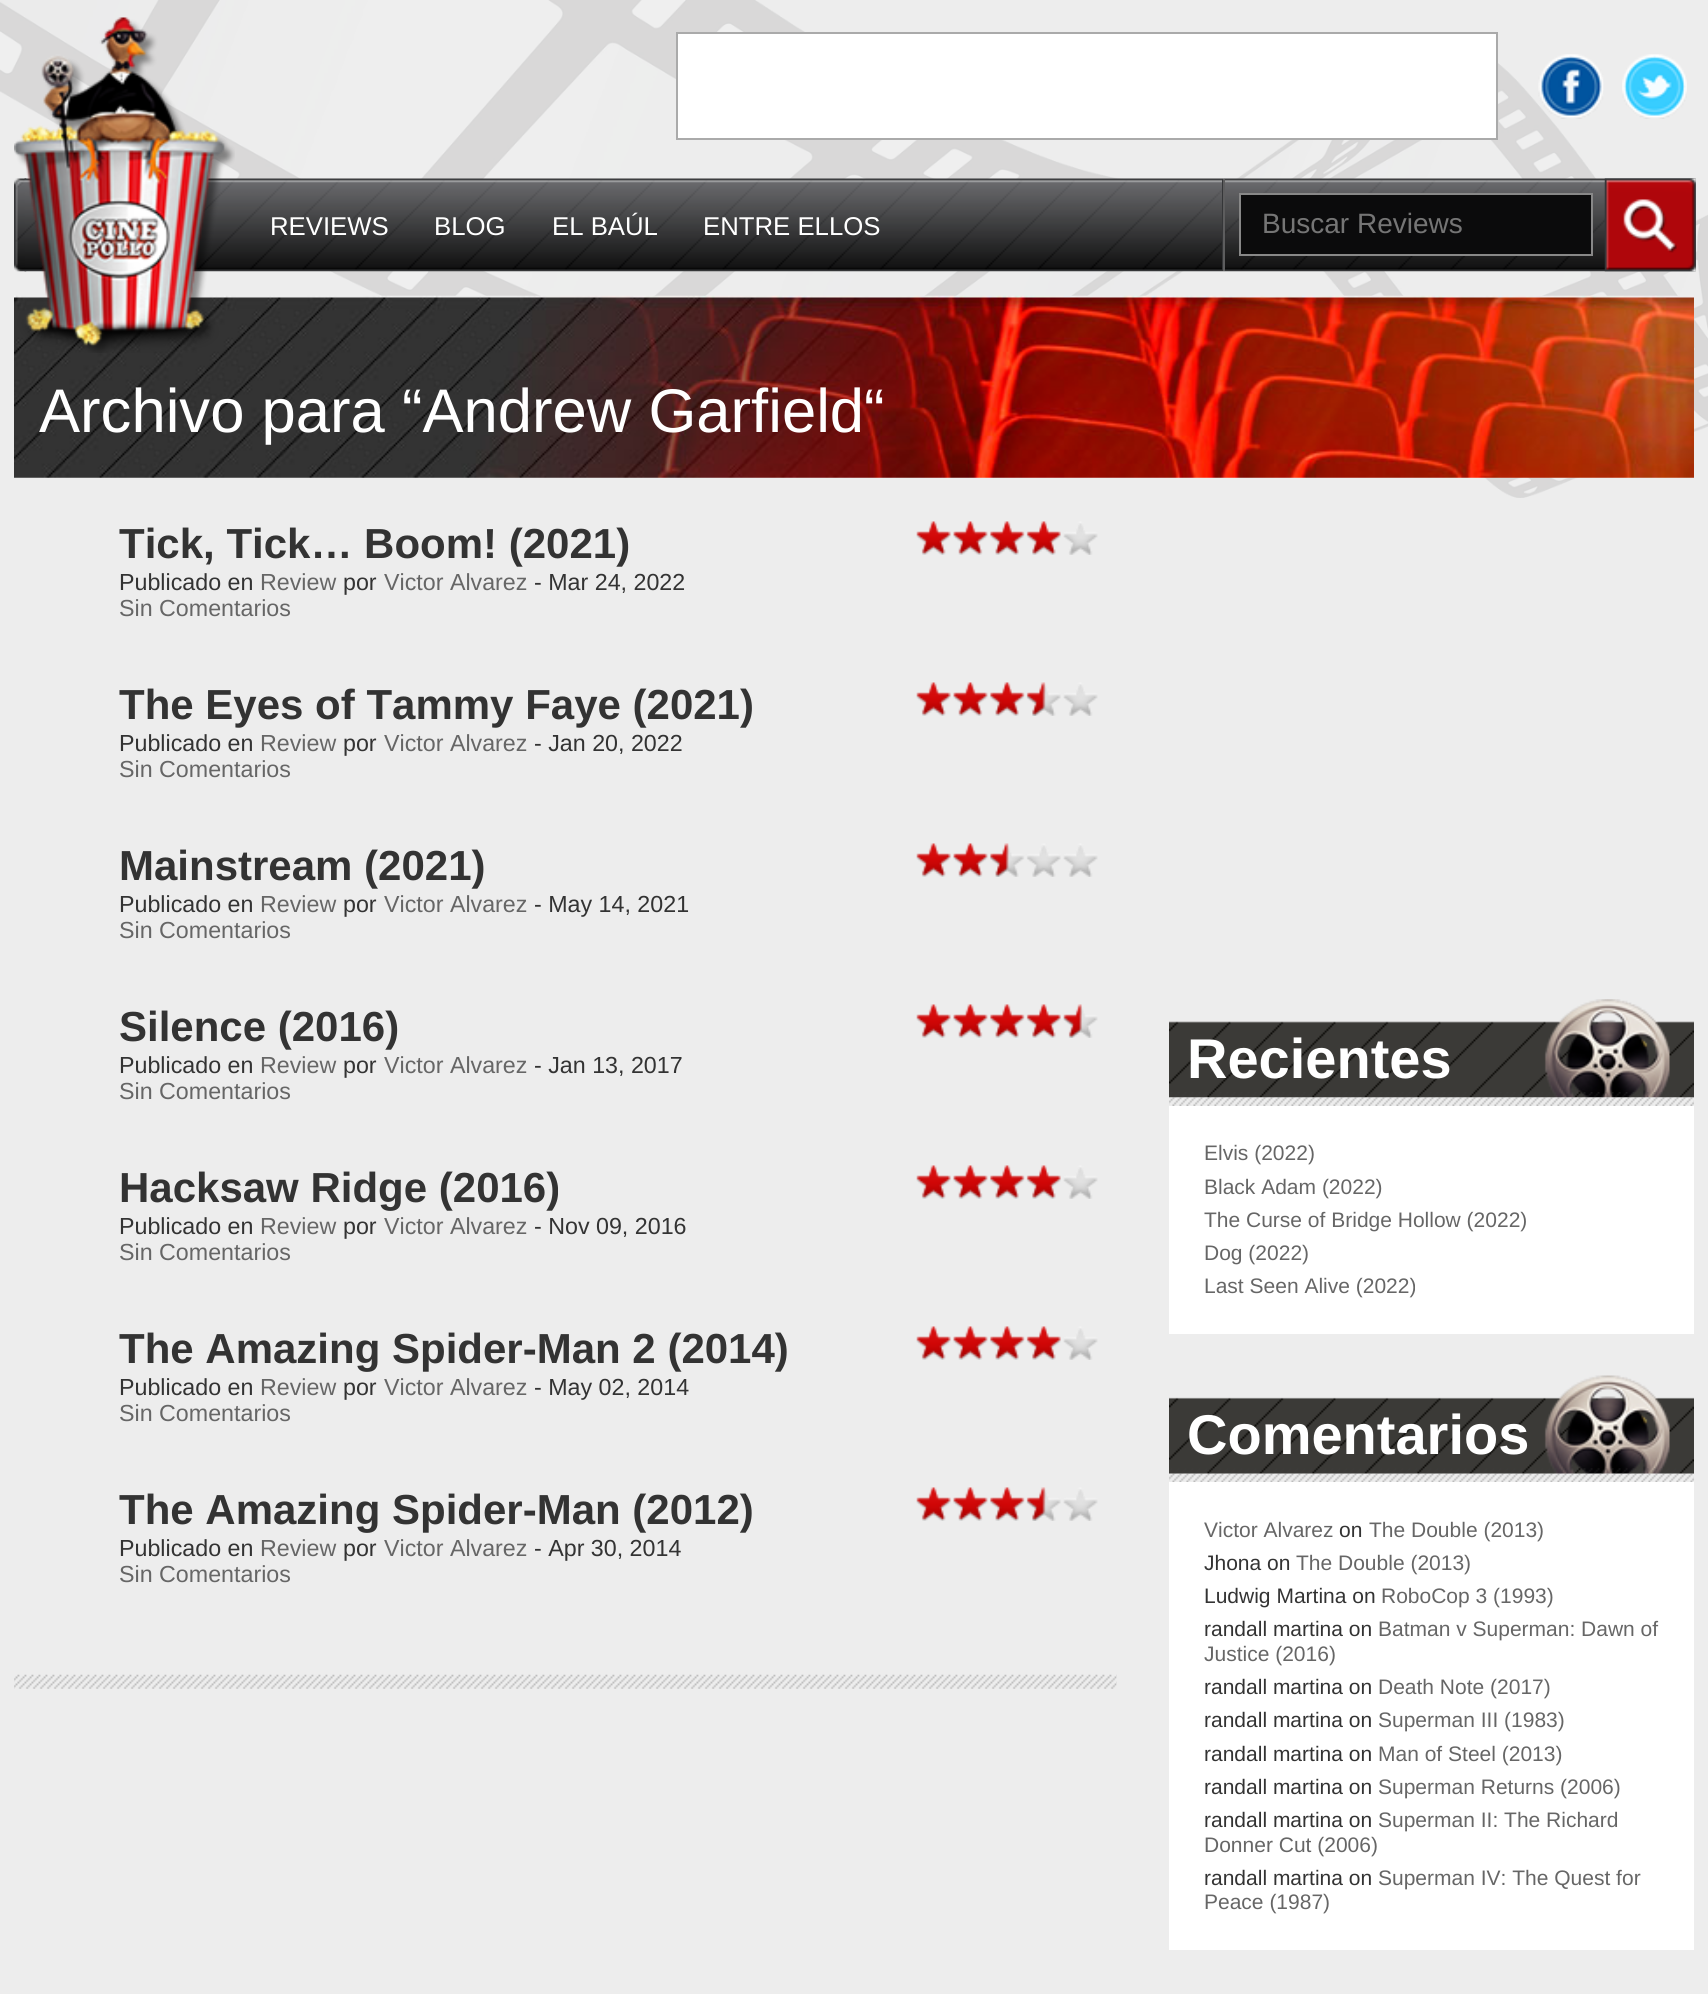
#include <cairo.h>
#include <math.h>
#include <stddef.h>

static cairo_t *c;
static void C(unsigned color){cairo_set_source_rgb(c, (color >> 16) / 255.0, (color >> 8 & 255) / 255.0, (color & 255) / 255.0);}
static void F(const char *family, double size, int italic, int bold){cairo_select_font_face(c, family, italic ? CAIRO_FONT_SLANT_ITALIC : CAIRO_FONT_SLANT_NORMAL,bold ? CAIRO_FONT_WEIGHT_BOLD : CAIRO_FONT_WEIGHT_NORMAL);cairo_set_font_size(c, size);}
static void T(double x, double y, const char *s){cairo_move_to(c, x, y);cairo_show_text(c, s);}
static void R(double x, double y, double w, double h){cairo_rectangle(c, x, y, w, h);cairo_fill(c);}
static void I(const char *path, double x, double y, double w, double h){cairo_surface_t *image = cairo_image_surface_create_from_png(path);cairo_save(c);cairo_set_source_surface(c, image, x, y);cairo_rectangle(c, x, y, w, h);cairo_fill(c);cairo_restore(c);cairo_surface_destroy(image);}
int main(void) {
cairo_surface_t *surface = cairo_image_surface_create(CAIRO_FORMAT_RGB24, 1708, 1994);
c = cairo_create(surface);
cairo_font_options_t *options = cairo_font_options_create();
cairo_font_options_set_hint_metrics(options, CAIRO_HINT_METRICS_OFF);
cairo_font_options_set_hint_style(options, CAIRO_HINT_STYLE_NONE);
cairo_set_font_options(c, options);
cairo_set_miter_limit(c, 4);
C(0xededed);
cairo_paint(c);
I("1.png",0,0,1708,498);
I("5.png",14,178,13,94);
I("6.png",24,178,1200,94);
I("9.png",14,295,1680,183);
I("2.png",14,17,221,336);
C(0xffffff);
cairo_rectangle(c,677,33,820,106);
cairo_fill_preserve(c);
C(0xaaaaaa);
cairo_stroke(c);
I("3.png",1538,54,66,65);
I("4.png",1622,54,65,65);
C(0x353638);
R(1222,179,1,92);
F("Liberation Sans",25.75,0,0);
C(0xffffff);
T(270,235,"REVIEWS");
T(434,235,"BLOG");
T(552,235,"EL BAÚL");
T(703,235,"ENTRE ELLOS");
I("7.png",1223,178,473,94);
C(0x5d5d5e);
R(1223,179,2,92);
C(0x0b0b0c);
cairo_rectangle(c,1240,194,352,61);
cairo_fill_preserve(c);
C(0x888888);
cairo_stroke(c);
F("Liberation Sans",28,0,0);
C(0x757575);
T(1262,233,"Buscar Reviews");
I("8.png",1604,178,92,94);
F("Liberation Sans",61.6,0,0);
C(0xffffff);
T(39,432,"Archivo para “Andrew Garfield“");
F("Liberation Sans",42,0,1);
C(0x333333);
T(119,558,"Tick, Tick… Boom! (2021)");
I("10.png",916,521,182,34);
F("Liberation Sans",23.25,0,0);
T(119,590,"Publicado en");
C(0x666666);
T(260,590,"Review");
C(0x333333);
T(343,590,"por");
C(0x666666);
T(384,590,"Victor Alvarez");
C(0x333333);
T(534,590,"- Mar 24, 2022");
C(0x666666);
T(119,616,"Sin Comentarios");
F("Liberation Sans",42,0,1);
C(0x333333);
T(119,719,"The Eyes of Tammy Faye (2021)");
I("11.png",916,682,182,34);
F("Liberation Sans",23.25,0,0);
T(119,751,"Publicado en");
C(0x666666);
T(260,751,"Review");
C(0x333333);
T(343,751,"por");
C(0x666666);
T(384,751,"Victor Alvarez");
C(0x333333);
T(534,751,"- Jan 20, 2022");
C(0x666666);
T(119,777,"Sin Comentarios");
F("Liberation Sans",42,0,1);
C(0x333333);
T(119,880,"Mainstream (2021)");
I("12.png",916,843,182,34);
F("Liberation Sans",23.25,0,0);
T(119,912,"Publicado en");
C(0x666666);
T(260,912,"Review");
C(0x333333);
T(343,912,"por");
C(0x666666);
T(384,912,"Victor Alvarez");
C(0x333333);
T(534,912,"- May 14, 2021");
C(0x666666);
T(119,938,"Sin Comentarios");
F("Liberation Sans",42,0,1);
C(0x333333);
T(119,1041,"Silence (2016)");
I("13.png",916,1004,182,34);
F("Liberation Sans",23.25,0,0);
T(119,1073,"Publicado en");
C(0x666666);
T(260,1073,"Review");
C(0x333333);
T(343,1073,"por");
C(0x666666);
T(384,1073,"Victor Alvarez");
C(0x333333);
T(534,1073,"- Jan 13, 2017");
C(0x666666);
T(119,1099,"Sin Comentarios");
F("Liberation Sans",42,0,1);
C(0x333333);
T(119,1202,"Hacksaw Ridge (2016)");
I("10.png",916,1165,182,34);
F("Liberation Sans",23.25,0,0);
T(119,1234,"Publicado en");
C(0x666666);
T(260,1234,"Review");
C(0x333333);
T(343,1234,"por");
C(0x666666);
T(384,1234,"Victor Alvarez");
C(0x333333);
T(534,1234,"- Nov 09, 2016");
C(0x666666);
T(119,1260,"Sin Comentarios");
F("Liberation Sans",42,0,1);
C(0x333333);
T(119,1363,"The Amazing Spider-Man 2 (2014)");
I("10.png",916,1326,182,34);
F("Liberation Sans",23.25,0,0);
T(119,1395,"Publicado en");
C(0x666666);
T(260,1395,"Review");
C(0x333333);
T(343,1395,"por");
C(0x666666);
T(384,1395,"Victor Alvarez");
C(0x333333);
T(534,1395,"- May 02, 2014");
C(0x666666);
T(119,1421,"Sin Comentarios");
F("Liberation Sans",42,0,1);
C(0x333333);
T(119,1524,"The Amazing Spider-Man (2012)");
I("11.png",916,1487,182,34);
F("Liberation Sans",23.25,0,0);
T(119,1556,"Publicado en");
C(0x666666);
T(260,1556,"Review");
C(0x333333);
T(343,1556,"por");
C(0x666666);
T(384,1556,"Victor Alvarez");
C(0x333333);
T(534,1556,"- Apr 30, 2014");
C(0x666666);
T(119,1582,"Sin Comentarios");
I("14.png",14,1674,1103,15);
I("15.png",1169,999,525,99);
I("16.png",1169,1092,525,14);
F("Liberation Sans",56,0,1);
C(0xffffff);
T(1187,1078,"Recientes");
R(1169,1106,525,228);
F("Liberation Sans",21,0,0);
C(0x666666);
T(1204,1160,"Elvis (2022)");
T(1204,1194,"Black Adam (2022)");
T(1204,1227,"The Curse of Bridge Hollow (2022)");
T(1204,1260,"Dog (2022)");
T(1204,1293,"Last Seen Alive (2022)");
I("17.png",1169,1375,525,99);
I("18.png",1169,1468,525,14);
F("Liberation Sans",56,0,1);
C(0xffffff);
T(1187,1454,"Comentarios");
R(1169,1482,525,468);
F("Liberation Sans",21,0,0);
C(0x666666);
T(1204,1537,"Victor Alvarez");
C(0x333333);
T(1339,1537,"on");
C(0x666666);
T(1369,1537,"The Double (2013)");
C(0x333333);
T(1204,1570,"Jhona on");
C(0x666666);
T(1296,1570,"The Double (2013)");
C(0x333333);
T(1204,1603,"Ludwig Martina on");
C(0x666666);
T(1381,1603,"RoboCop 3 (1993)");
C(0x333333);
T(1204,1636,"randall martina on");
C(0x666666);
T(1378,1636,"Batman v Superman: Dawn of");
T(1204,1661,"Justice (2016)");
C(0x333333);
T(1204,1694,"randall martina on");
C(0x666666);
T(1378,1694,"Death Note (2017)");
C(0x333333);
T(1204,1727,"randall martina on");
C(0x666666);
T(1378,1727,"Superman III (1983)");
C(0x333333);
T(1204,1761,"randall martina on");
C(0x666666);
T(1378,1761,"Man of Steel (2013)");
C(0x333333);
T(1204,1794,"randall martina on");
C(0x666666);
T(1378,1794,"Superman Returns (2006)");
C(0x333333);
T(1204,1827,"randall martina on");
C(0x666666);
T(1378,1827,"Superman II: The Richard");
T(1204,1852,"Donner Cut (2006)");
C(0x333333);
T(1204,1885,"randall martina on");
C(0x666666);
T(1378,1885,"Superman IV: The Quest for");
T(1204,1909,"Peace (1987)");
cairo_surface_write_to_png(surface, "o.png");
cairo_font_options_destroy(options);
cairo_destroy(c);
cairo_surface_destroy(surface);
return 0;
}
